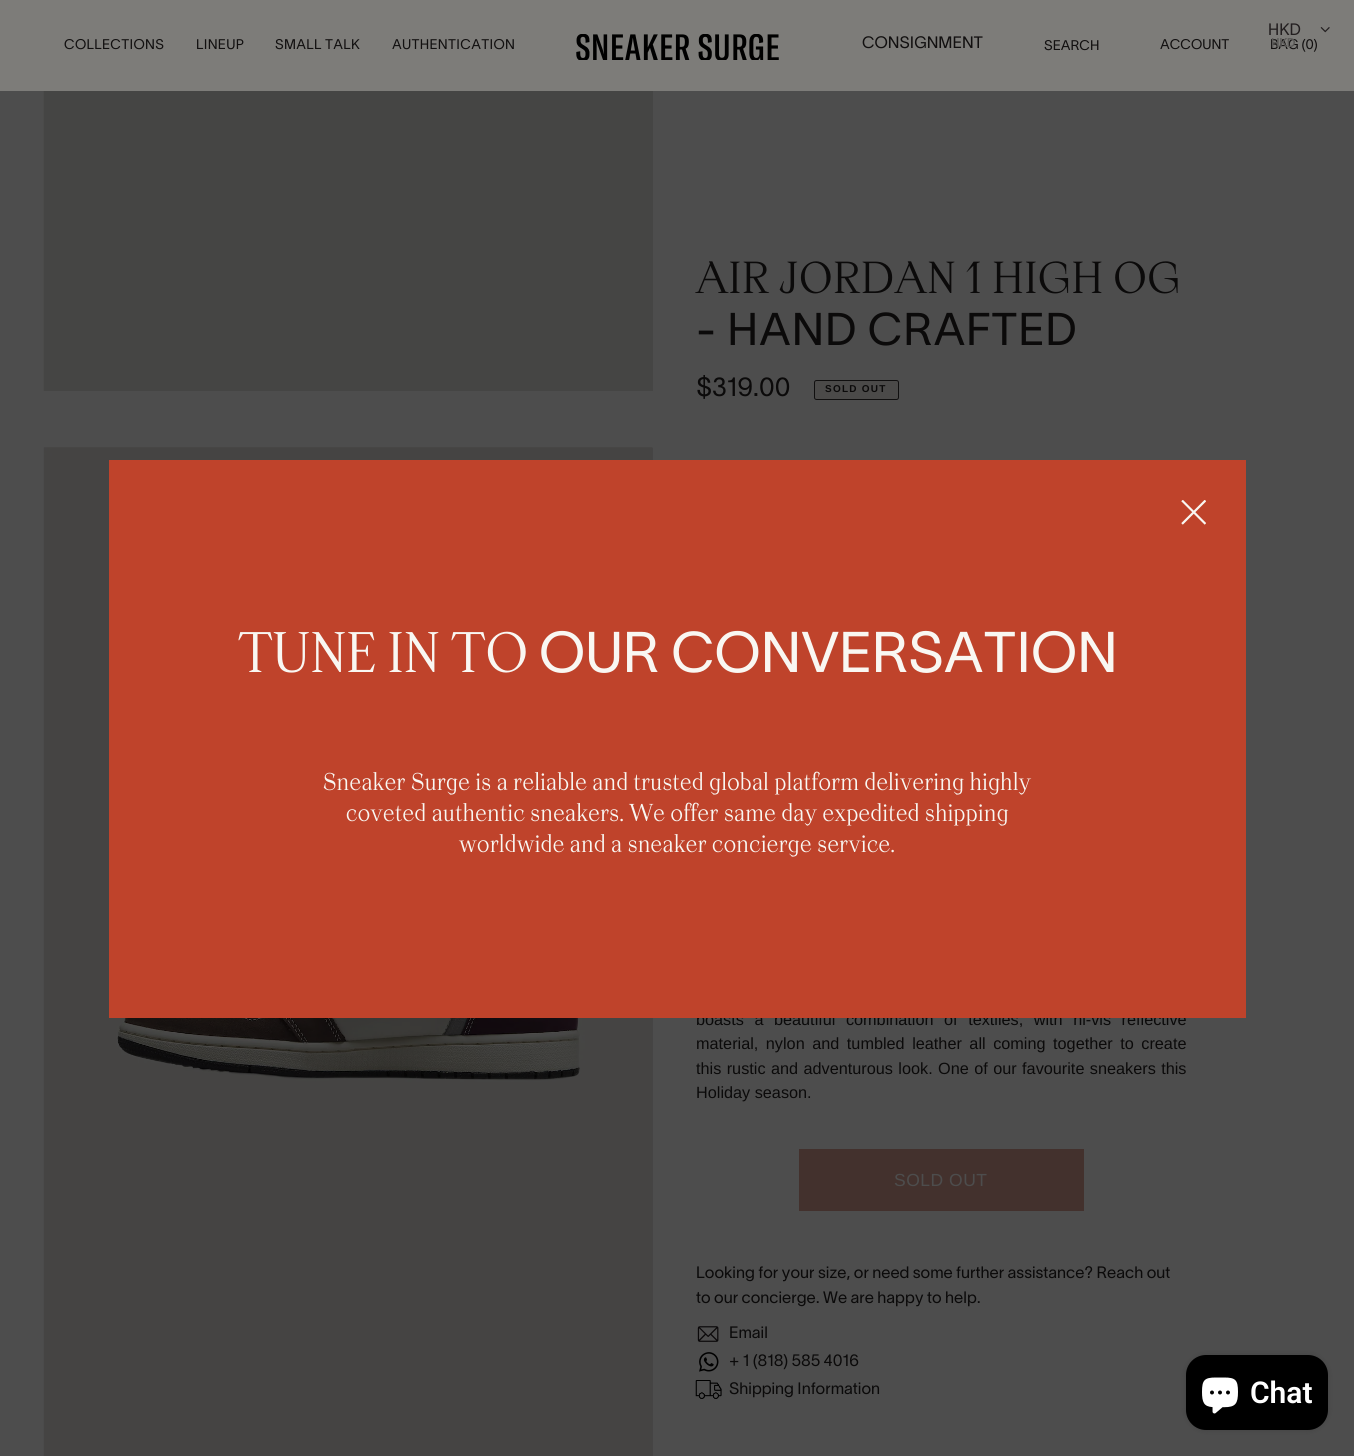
#include <cairo.h>
#include <math.h>
#include <stddef.h>

static cairo_t *c;
static void C(unsigned color){cairo_set_source_rgb(c, (color >> 16) / 255.0, (color >> 8 & 255) / 255.0, (color & 255) / 255.0);}
static void F(const char *family, double size, int italic, int bold){cairo_select_font_face(c, family, italic ? CAIRO_FONT_SLANT_ITALIC : CAIRO_FONT_SLANT_NORMAL,bold ? CAIRO_FONT_WEIGHT_BOLD : CAIRO_FONT_WEIGHT_NORMAL);cairo_set_font_size(c, size);}
static void T(double x, double y, const char *s){cairo_move_to(c, x, y);cairo_show_text(c, s);}
static void L(double x, double y, const char *s, double letter, double word){cairo_move_to(c, x, y);while (*s) {char ch[5] = {0};int n = 0;do ch[n++] = *s++; while ((*s & 0xC0) == 0x80);cairo_show_text(c, ch);cairo_rel_move_to(c, letter + word * (*ch == ' '), 0);}}
static void R(double x, double y, double w, double h){cairo_rectangle(c, x, y, w, h);cairo_fill(c);}
static void Q(double x, double y, double w, double h, double r){cairo_new_sub_path(c);cairo_arc(c, x + w - r, y + h - r, r, 0, M_PI / 2);cairo_arc(c, x + r, y + h - r, r, M_PI / 2, M_PI);cairo_arc(c, x + r, y + r, r, M_PI, 1.5 * M_PI);cairo_arc(c, x + w - r, y + r, r, 1.5 * M_PI, 2 * M_PI);cairo_close_path(c);}
static void S(double x, double y, double w, double h, double r, double blur, double alpha){cairo_push_group_with_content(c, CAIRO_CONTENT_ALPHA);cairo_set_operator(c, CAIRO_OPERATOR_SOURCE);for (int i = 15; i >= -15 && fmin(w, h) + blur * i / 3 > 0; i -= 2) {double e = blur * i / 6;cairo_set_source_rgba(c, 0, 0, 0, alpha * erfc((i - 1) / 8.5) / 2);Q(x - e, y - e, w + 2 * e, h + 2 * e, fmax(0, fmin(r + e + blur * .6, fmin(w, h) / 2 + e)));cairo_fill(c);}cairo_pattern_t *soft = cairo_pop_group(c);cairo_mask(c, soft);cairo_pattern_destroy(soft);}
static void I(const char *path, double x, double y, double w, double h){cairo_surface_t *image = cairo_image_surface_create_from_png(path);cairo_save(c);cairo_set_source_surface(c, image, x, y);cairo_rectangle(c, x, y, w, h);cairo_fill(c);cairo_restore(c);cairo_surface_destroy(image);}
int main(void) {
cairo_surface_t *surface = cairo_image_surface_create(CAIRO_FORMAT_RGB24, 1354, 1456);
c = cairo_create(surface);
cairo_font_options_t *options = cairo_font_options_create();
cairo_font_options_set_hint_metrics(options, CAIRO_HINT_METRICS_OFF);
cairo_font_options_set_hint_style(options, CAIRO_HINT_STYLE_NONE);
cairo_set_font_options(c, options);
cairo_set_miter_limit(c, 4);
C(0x4d4d4d);
cairo_paint(c);
C(0x7d7c79);
R(0,0,1354,91);
F("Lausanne",16.25,0,0);
C(0x231f20);
T(1268,35,"HKD");
F("Lausanne",13.75,0,0);
C(0x121010);
T(1270,49,"BAG (0)");
F("Lausanne",12,0,1);
C(0x5a5957);
T(1271,47,"HKD");
I("1.png",1320,27,10,6);
F("Lausanne",13.75,0,0);
C(0x121010);
L(64,49,"COLLECTIONS",.3,0);
L(196,49,"LINEUP",.3,0);
L(275,49,"SMALL TALK",.3,0);
L(392,49,"AUTHENTICATION",.3,0);
I("2.png",576,34,203,26);
F("Lausanne",16.25,0,0);
T(862,48,"CONSIGNMENT");
F("Lausanne",13.75,0,0);
T(1044,50,"SEARCH");
T(1160,49,"ACCOUNT");
C(0x454544);
R(44,91,609,300);
C(0x4b4b4a);
R(43,91,1,300);
C(0x454544);
R(652,448,1,1008);
I("3.png",43,447,610,1009);
F("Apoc",41.25,0,0);
C(0x0b0a0a);
L(696,293,"AIR JORDAN 1 HIGH OG",.9,0);
F("Lausanne",45,0,0);
L(696,345,"- HAND CRAFTED",.9,0);
F("Lausanne",26,0,0);
T(696,396,"$319.00");
C(0x4b4a49);
Q(814.5,380.5,84,19,2);
cairo_fill_preserve(c);
C(0x100f0f);
cairo_set_line_width(c,1);
cairo_stroke(c);
F("Liberation Sans",10,0,1);
C(0x0b0a0a);
L(825,392,"SOLD OUT",1.25,0);
F("Liberation Sans",16.25,0,0);
L(696,1025,"boasts a beautiful combination of textiles, with hi-vis reflective",0,6);
L(696,1049,"material, nylon and tumbled leather all coming together to create",0,3);
L(696,1074,"this rustic and adventurous look. One of our favourite sneakers this",0,.9);
T(696,1098,"Holiday season.");
C(0x43312d);
R(799,1149,285,62);
F("Liberation Sans",17.5,0,0);
C(0x4d4d4d);
L(894,1186,"SOLD OUT",.5,0);
F("Lausanne",16.25,0,0);
C(0x0b0a0a);
T(696,1278,"Looking for your size, or need some further assistance? Reach out");
T(696,1303,"to our concierge. We are happy to help.");
I("4.png",697,1326,22,16);
T(729,1338,"Email");
I("5.png",699,1352,20,20);
T(729,1366,"+ 1 (818) 585 4016");
I("6.png",695,1380,27,19);
T(729,1394,"Shipping Information");
C(0xbf432b);
R(109,460,1137,558);
I("7.png",1181,500,25,25);
F("Apoc",52.5,0,0);
C(0xf9f7f2);
T(238,672,"TUNE IN TO");
F("Lausanne",56.25,0,0);
T(539,672,"OUR CONVERSATION");
F("Apoc",22.5,0,0);
L(323,790,"Sneaker Surge is a reliable and trusted global platform delivering highly",.45,0);
L(346,821,"coveted authentic sneakers. We offer same day expedited shipping",.45,0);
L(459,852,"worldwide and a sneaker concierge service.",.45,0);
C(0x000000);
S(1186,1355,142,75,20,3,.15);
C(0x000000);
Q(1186,1355,142,75,20);
cairo_fill(c);
I("8.png",1202,1377,36,37);
F("Roboto SemiBold",30,0,0);
C(0xffffff);
T(1250,1403,"Chat");
cairo_surface_write_to_png(surface, "o.png");
cairo_font_options_destroy(options);
cairo_destroy(c);
cairo_surface_destroy(surface);
return 0;
}
